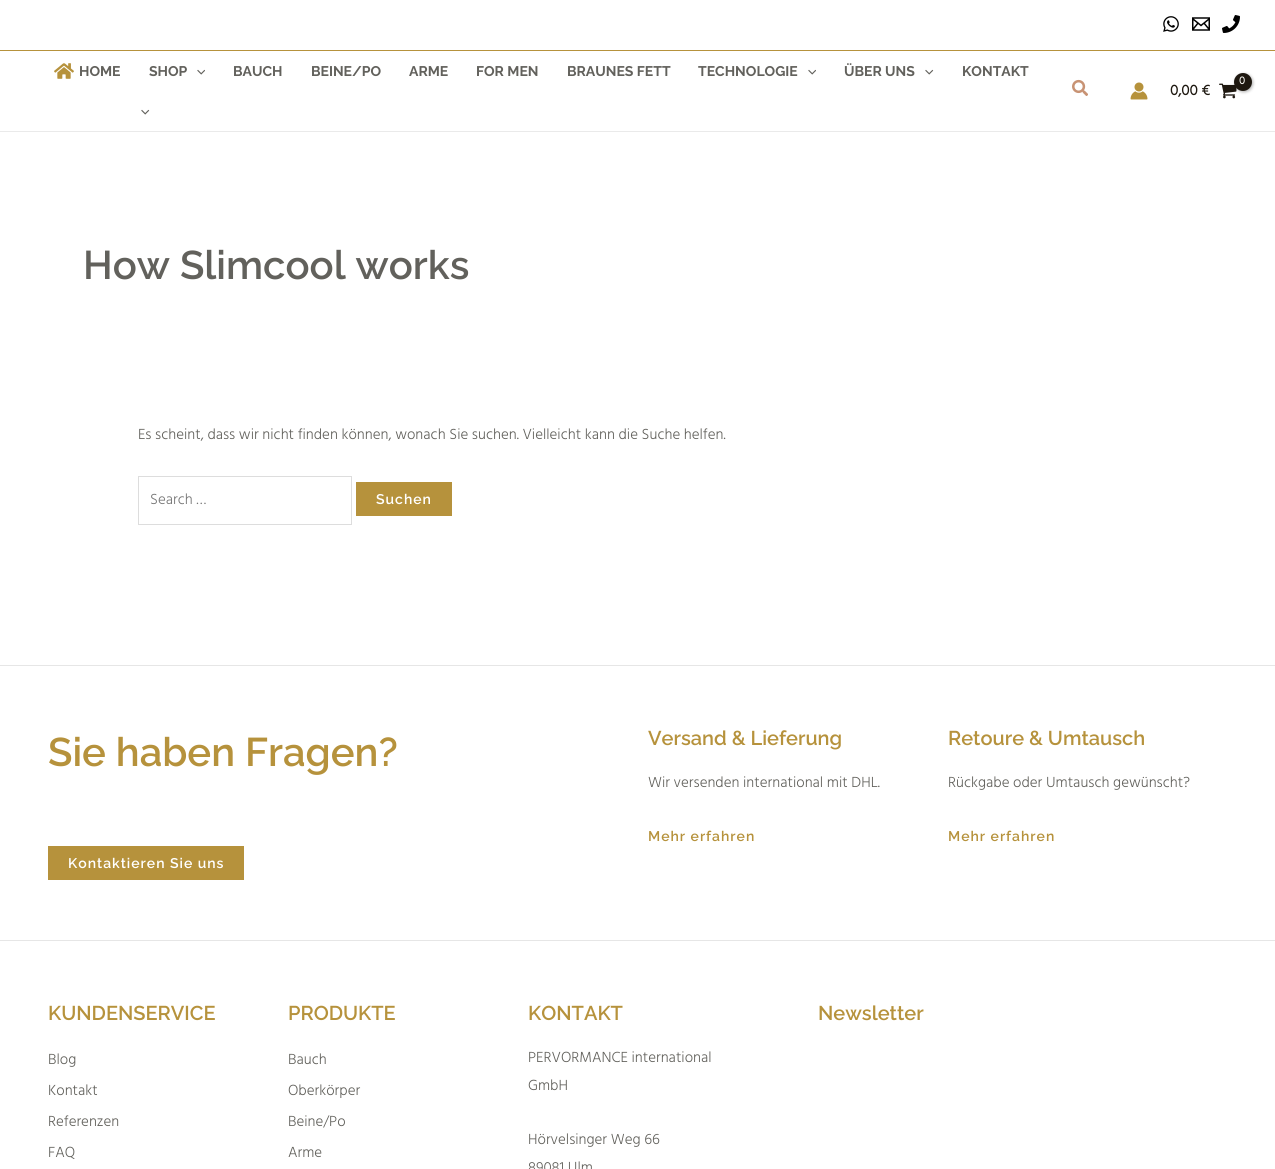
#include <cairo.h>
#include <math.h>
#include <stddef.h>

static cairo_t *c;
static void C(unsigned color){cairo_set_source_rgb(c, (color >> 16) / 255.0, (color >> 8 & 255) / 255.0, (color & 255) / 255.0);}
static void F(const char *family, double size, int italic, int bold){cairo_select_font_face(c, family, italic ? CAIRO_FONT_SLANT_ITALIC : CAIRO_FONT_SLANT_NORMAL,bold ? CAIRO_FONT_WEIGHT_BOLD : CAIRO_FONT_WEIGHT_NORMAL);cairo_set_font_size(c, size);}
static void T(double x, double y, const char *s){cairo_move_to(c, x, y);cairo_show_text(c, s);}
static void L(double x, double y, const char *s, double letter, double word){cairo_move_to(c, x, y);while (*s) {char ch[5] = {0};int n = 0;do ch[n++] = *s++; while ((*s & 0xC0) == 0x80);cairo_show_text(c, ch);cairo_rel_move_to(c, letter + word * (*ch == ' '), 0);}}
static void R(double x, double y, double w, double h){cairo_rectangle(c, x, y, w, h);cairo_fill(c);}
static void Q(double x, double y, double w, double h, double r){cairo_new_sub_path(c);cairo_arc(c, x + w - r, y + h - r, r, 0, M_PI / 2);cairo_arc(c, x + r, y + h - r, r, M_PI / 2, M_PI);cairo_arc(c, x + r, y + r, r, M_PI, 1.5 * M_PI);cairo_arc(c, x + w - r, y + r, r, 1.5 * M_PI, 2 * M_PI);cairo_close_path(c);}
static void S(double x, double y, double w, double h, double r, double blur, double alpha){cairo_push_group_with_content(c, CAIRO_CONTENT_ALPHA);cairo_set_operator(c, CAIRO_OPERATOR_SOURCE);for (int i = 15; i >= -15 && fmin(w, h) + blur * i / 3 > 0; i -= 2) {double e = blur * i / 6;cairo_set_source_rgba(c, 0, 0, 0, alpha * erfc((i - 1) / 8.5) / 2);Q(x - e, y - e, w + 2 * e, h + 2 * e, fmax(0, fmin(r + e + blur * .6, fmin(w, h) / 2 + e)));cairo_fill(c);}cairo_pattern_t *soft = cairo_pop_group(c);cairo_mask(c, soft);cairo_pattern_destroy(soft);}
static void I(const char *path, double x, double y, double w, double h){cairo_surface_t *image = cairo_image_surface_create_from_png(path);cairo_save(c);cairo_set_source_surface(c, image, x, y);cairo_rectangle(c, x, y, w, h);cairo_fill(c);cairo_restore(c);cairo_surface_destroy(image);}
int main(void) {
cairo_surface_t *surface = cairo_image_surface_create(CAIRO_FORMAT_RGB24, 1275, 1169);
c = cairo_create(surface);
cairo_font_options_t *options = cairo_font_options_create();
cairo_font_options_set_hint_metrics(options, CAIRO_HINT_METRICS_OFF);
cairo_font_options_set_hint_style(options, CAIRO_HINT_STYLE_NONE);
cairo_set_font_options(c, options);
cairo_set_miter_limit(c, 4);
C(0xffffff);
cairo_paint(c);
C(0xb6923c);
R(0,50,1275,1);
I("1.png",1163,16,16,16);
I("2.png",1192,17,18,14);
I("3.png",1222,15,18,18);
C(0xeaeaea);
R(0,131,1275,1);
I("4.png",54,63,20,16);
F("Raleway",14,0,1);
C(0x62615c);
T(79,76,"HOME");
T(149,76,"SHOP");
I("5.png",197,69,8,6);
T(233,76,"BAUCH");
T(311,76,"BEINE/PO");
T(409,76,"ARME");
T(476,76,"FOR MEN");
T(567,76,"BRAUNES FETT");
T(698,76,"TECHNOLOGIE");
I("5.png",808,69,8,6);
T(844,76,"ÜBER UNS");
I("6.png",925,69,9,6);
T(962,76,"KONTAKT");
I("6.png",141,109,9,6);
I("7.png",1072,79,16,17);
I("8.png",1130,82,18,18);
I("9.png",1219,83,18,16);
C(0x000000);
S(1235,74,18,18,9,1.5,.3);
C(0x1e1810);
cairo_arc(c,1243,82,9,0,2 * M_PI);
cairo_fill(c);
F("Hind",11,0,1);
C(0xf8f7f3);
T(1239,84,"0");
F("Hind",15,0,1);
C(0x1e1810);
T(1170,95,"0,00 €");
F("Raleway SemiBold",40,0,0);
C(0x62615c);
T(83,279,"How Slimcool works");
F("Hind Light",15,0,0);
T(138,439,"Es scheint, dass wir nicht finden können, wonach Sie suchen. Vielleicht kann die Suche helfen.");
cairo_rectangle(c,138.5,476.5,213,48);
C(0xdddddd);
cairo_set_line_width(c,1);
cairo_stroke(c);
C(0x757575);
T(150,504,"Search …");
C(0xb6923c);
R(356,482,96,34);
F("Raleway SemiBold",14,0,0);
C(0xffffff);
L(376,504,"Suchen",1,0);
C(0xe6e6e6);
R(0,665,1275,1);
R(0,940,1275,1);
F("Raleway SemiBold",40,0,0);
C(0xb6923c);
T(48,766,"Sie haben Fragen?");
R(48,846,196,34);
F("Raleway SemiBold",14,0,0);
C(0xffffff);
L(68,868,"Kontaktieren Sie uns",1,0);
F("Raleway SemiBold",20,0,0);
C(0xb6923c);
T(648,745,"Versand & Lieferung");
F("Hind Light",15,0,0);
C(0x62615c);
T(648,787,"Wir versenden international mit DHL.");
F("Raleway SemiBold",14,0,0);
C(0xb6923c);
L(648,841,"Mehr erfahren",1,0);
F("Raleway SemiBold",20,0,0);
T(948,745,"Retoure & Umtausch");
F("Hind Light",15,0,0);
C(0x62615c);
T(948,787,"Rückgabe oder Umtausch gewünscht?");
F("Raleway SemiBold",14,0,0);
C(0xb6923c);
L(948,841,"Mehr erfahren",1,0);
F("Raleway SemiBold",20,0,0);
T(48,1020,"KUNDENSERVICE");
F("Hind Light",15,0,0);
C(0x62615c);
T(48,1064,"Blog");
T(48,1095,"Kontakt");
T(48,1126,"Referenzen");
T(48,1157,"FAQ");
F("Raleway SemiBold",20,0,0);
C(0xb6923c);
T(288,1020,"PRODUKTE");
F("Hind Light",15,0,0);
C(0x62615c);
T(288,1064,"Bauch");
T(288,1095,"Oberkörper");
T(288,1126,"Beine/Po");
T(288,1157,"Arme");
F("Raleway SemiBold",20,0,0);
C(0xb6923c);
T(528,1020,"KONTAKT");
F("Hind Light",15,0,0);
C(0x62615c);
T(528,1062,"PERVORMANCE international");
T(528,1090,"GmbH");
T(528,1144,"Hörvelsinger Weg 66");
T(528,1172,"89081 Ulm");
F("Raleway SemiBold",20,0,0);
C(0xb6923c);
T(818,1020,"Newsletter");
cairo_surface_write_to_png(surface, "o.png");
cairo_font_options_destroy(options);
cairo_destroy(c);
cairo_surface_destroy(surface);
return 0;
}
